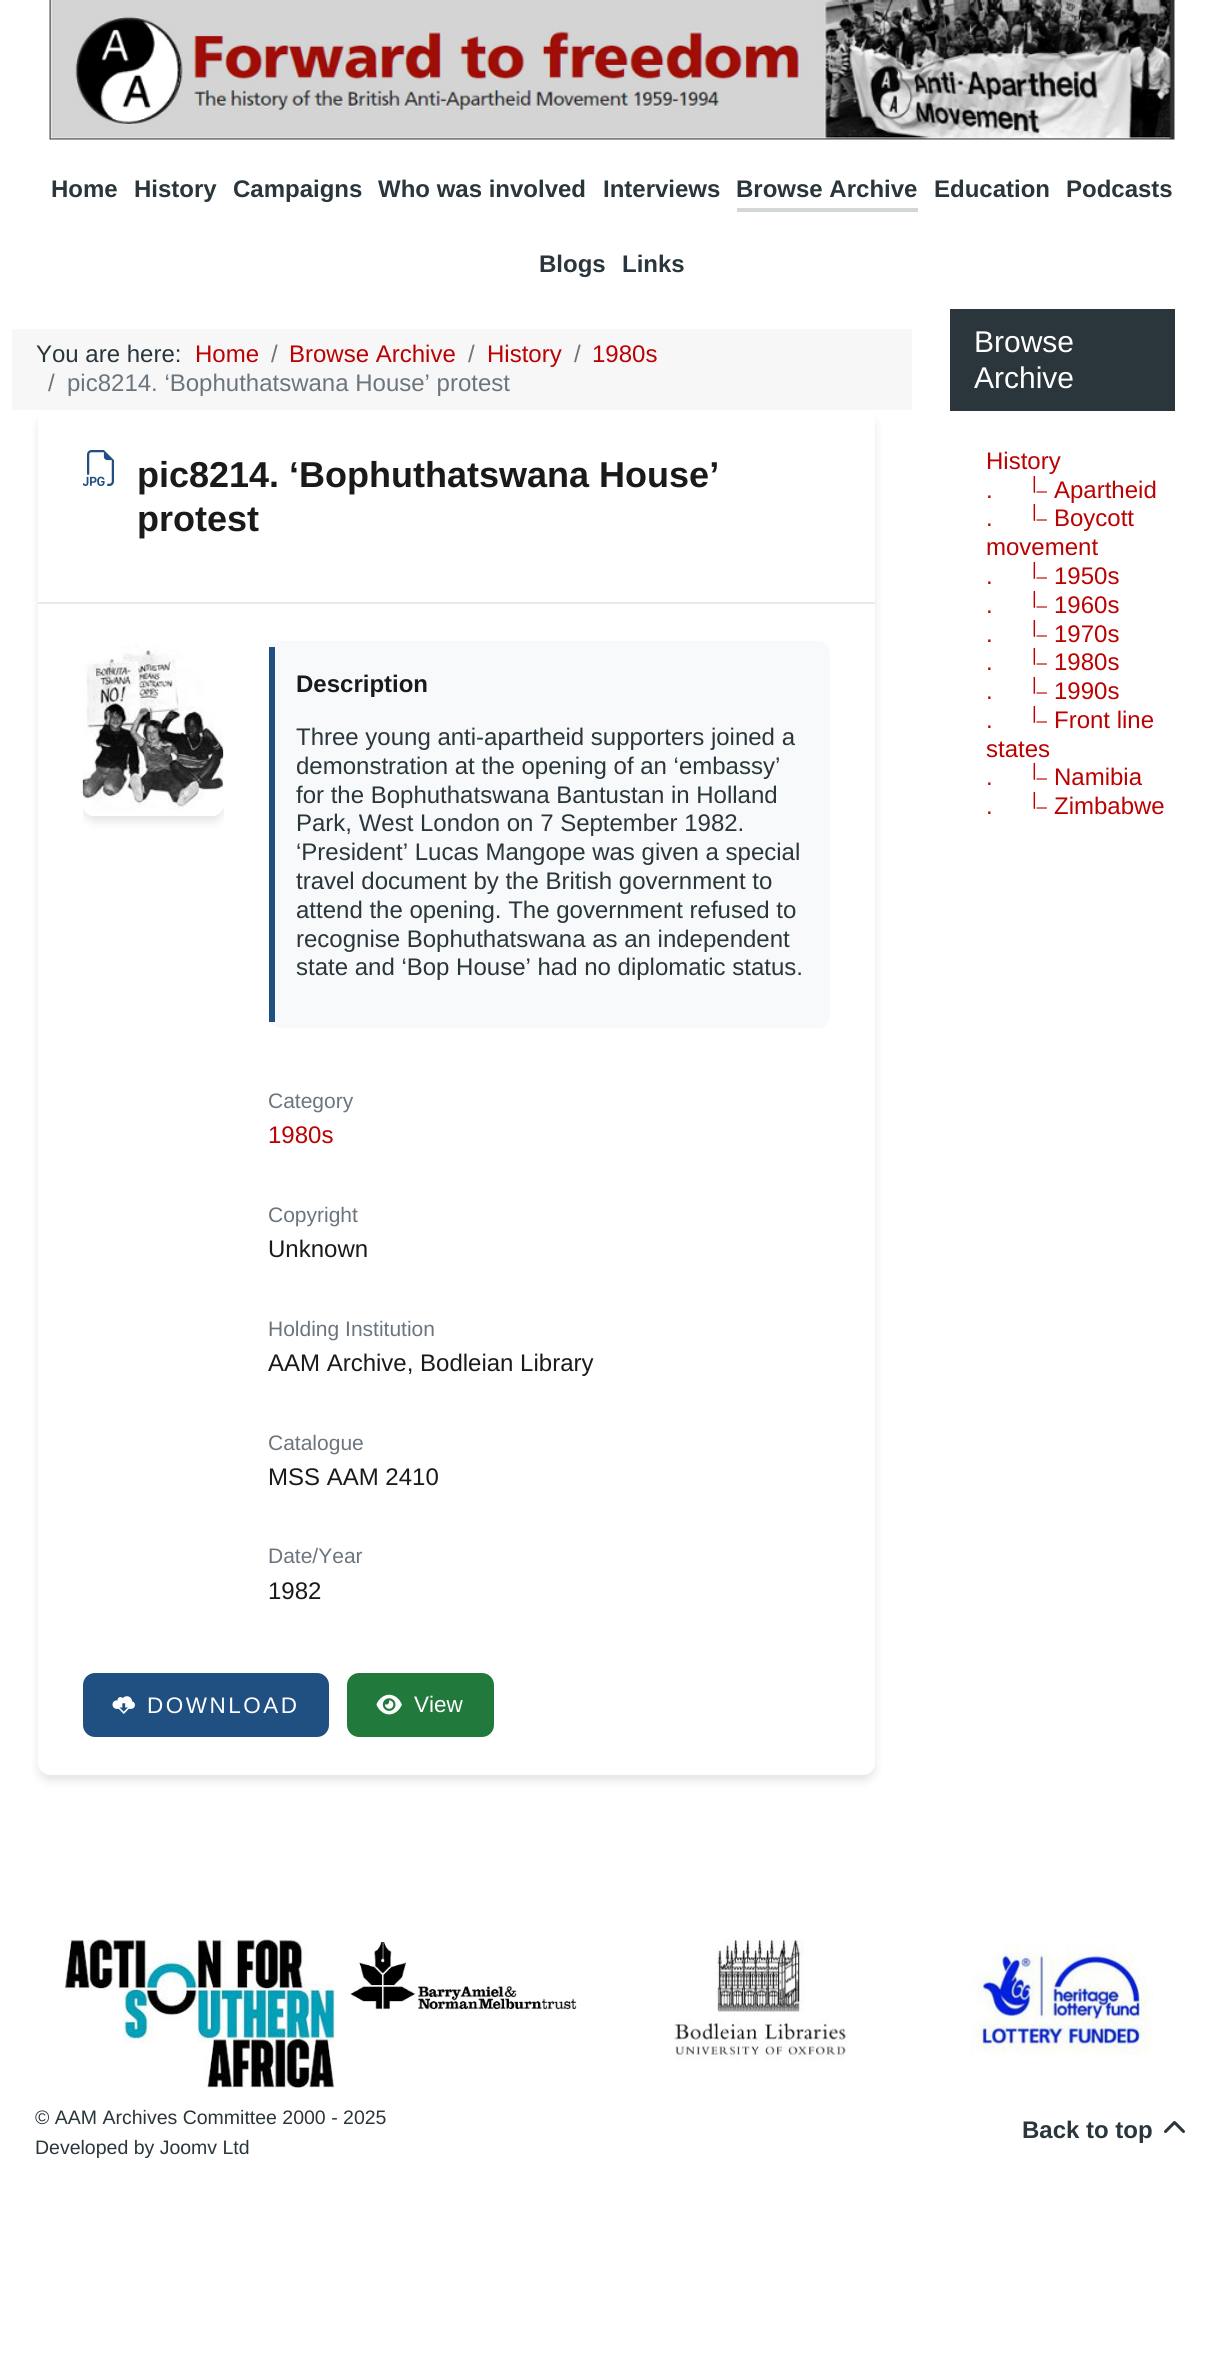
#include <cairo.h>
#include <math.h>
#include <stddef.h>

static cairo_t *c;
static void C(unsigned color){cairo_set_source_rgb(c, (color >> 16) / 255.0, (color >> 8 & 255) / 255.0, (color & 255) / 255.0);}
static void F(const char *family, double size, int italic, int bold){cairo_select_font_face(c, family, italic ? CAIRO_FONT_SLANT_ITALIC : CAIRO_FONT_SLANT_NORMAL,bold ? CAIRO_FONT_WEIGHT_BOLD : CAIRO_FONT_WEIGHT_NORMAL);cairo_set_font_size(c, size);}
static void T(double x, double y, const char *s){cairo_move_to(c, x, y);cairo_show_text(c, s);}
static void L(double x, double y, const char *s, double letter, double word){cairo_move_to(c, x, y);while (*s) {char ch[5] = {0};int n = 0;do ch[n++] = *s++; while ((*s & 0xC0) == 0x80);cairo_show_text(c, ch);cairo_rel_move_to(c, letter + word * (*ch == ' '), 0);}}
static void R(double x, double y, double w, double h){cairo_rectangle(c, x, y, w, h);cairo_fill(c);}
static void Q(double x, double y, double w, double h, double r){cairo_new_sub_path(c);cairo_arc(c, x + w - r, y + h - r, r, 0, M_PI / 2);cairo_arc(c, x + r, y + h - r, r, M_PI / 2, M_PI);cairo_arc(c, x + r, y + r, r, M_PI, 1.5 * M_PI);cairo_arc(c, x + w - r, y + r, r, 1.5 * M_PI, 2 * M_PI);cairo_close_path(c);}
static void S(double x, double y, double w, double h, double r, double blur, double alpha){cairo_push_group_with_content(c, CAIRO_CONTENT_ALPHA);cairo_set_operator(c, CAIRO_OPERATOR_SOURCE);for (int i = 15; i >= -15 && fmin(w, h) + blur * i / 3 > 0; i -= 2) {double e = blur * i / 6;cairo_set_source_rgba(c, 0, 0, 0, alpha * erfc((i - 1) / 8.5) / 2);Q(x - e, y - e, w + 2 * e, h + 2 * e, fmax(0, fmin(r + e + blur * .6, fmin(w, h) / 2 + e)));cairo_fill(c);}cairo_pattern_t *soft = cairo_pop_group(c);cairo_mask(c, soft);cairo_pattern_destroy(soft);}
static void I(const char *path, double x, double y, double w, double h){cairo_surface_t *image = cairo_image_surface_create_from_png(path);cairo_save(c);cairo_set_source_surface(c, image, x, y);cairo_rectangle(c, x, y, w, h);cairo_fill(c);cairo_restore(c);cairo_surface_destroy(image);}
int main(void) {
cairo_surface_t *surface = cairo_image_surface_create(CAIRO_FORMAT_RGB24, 1223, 2362);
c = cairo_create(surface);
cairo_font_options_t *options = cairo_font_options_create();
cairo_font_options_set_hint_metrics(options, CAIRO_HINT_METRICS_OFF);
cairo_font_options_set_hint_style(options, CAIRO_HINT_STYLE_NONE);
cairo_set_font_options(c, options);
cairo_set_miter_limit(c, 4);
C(0xffffff);
cairo_paint(c);
I("1.png",49,0,1126,140);
F("Liberation Sans",24,0,1);
C(0x2a363b);
T(51,197,"Home");
T(134,197,"History");
T(233,197,"Campaigns");
T(378,197,"Who was involved");
T(603,197,"Interviews");
C(0xd4d7d8);
R(737,208,181,4);
C(0x2a363b);
T(736,197,"Browse Archive");
T(934,197,"Education");
T(1066,197,"Podcasts");
T(539,272,"Blogs");
T(622,272,"Links");
C(0xf7f7f7);
R(12,329,900,81);
F("Liberation Sans",24,0,0);
C(0x2a363b);
T(36,362,"You are here:");
C(0xba0202);
T(195,362,"Home");
C(0x6c757d);
T(271,362,"/");
C(0xba0202);
T(289,362,"Browse Archive");
C(0x6c757d);
T(468,362,"/");
C(0xba0202);
T(487,362,"History");
C(0x6c757d);
T(574,362,"/");
C(0xba0202);
T(592,362,"1980s");
C(0x6c757d);
T(48,391,"/");
T(67,391,"pic8214. ‘Bophuthatswana House’ protest");
C(0x000000);
S(38,416,837,1365,12,4.5,.1);
C(0xffffff);
Q(38,410,837,1365,12);
cairo_fill(c);
C(0xeaeaea);
R(38,602,837,2);
I("2.png",83,450,31,36);
F("Liberation Sans",36,0,1);
C(0x1a1a1a);
T(137,487,"pic8214. ‘Bophuthatswana House’");
T(137,531,"protest");
cairo_save(c);
Q(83,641,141,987,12);
cairo_clip(c);
cairo_set_fill_rule(c,CAIRO_FILL_RULE_EVEN_ODD);
cairo_new_path(c);
cairo_move_to(c,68,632);
cairo_line_to(c,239,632);
cairo_line_to(c,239,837);
cairo_line_to(c,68,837);
cairo_close_path(c);
cairo_move_to(c,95,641);
cairo_line_to(c,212,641);
cairo_curve_to(c,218.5,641,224,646.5,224,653);
cairo_line_to(c,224,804);
cairo_curve_to(c,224,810.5,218.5,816,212,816);
cairo_line_to(c,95,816);
cairo_curve_to(c,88.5,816,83,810.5,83,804);
cairo_line_to(c,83,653);
cairo_curve_to(c,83,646.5,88.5,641,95,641);
cairo_close_path(c);
cairo_clip(c);
C(0x000000);
S(83,647,141,175,12,4.5,.1);
cairo_restore(c);
I("3.png",82,645,142,171);
C(0xf8f9fa);
Q(269,641,561,387,12);
cairo_fill(c);
C(0x205081);
R(269,647,6,375);
F("Liberation Sans",24,0,1);
C(0x1a1a1a);
T(296,692,"Description");
F("Liberation Sans",24,0,0);
C(0x2a363b);
T(296,745,"Three young anti-apartheid supporters joined a");
T(296,774,"demonstration at the opening of an ‘embassy’");
T(296,803,"for the Bophuthatswana Bantustan in Holland");
T(296,831,"Park, West London on 7 September 1982.");
T(296,860,"‘President’ Lucas Mangope was given a special");
T(296,889,"travel document by the British government to");
T(296,918,"attend the opening. The government refused to");
T(296,947,"recognise Bophuthatswana as an independent");
T(296,975,"state and ‘Bop House’ had no diplomatic status.");
F("Liberation Sans",21,0,0);
C(0x6c757d);
T(268,1108,"Category");
F("Liberation Sans",24,0,0);
C(0xba0202);
T(268,1143,"1980s");
F("Liberation Sans",21,0,0);
C(0x6c757d);
T(268,1222,"Copyright");
F("Liberation Sans",24,0,0);
C(0x1a1a1a);
T(268,1257,"Unknown");
F("Liberation Sans",21,0,0);
C(0x6c757d);
T(268,1336,"Holding Institution");
F("Liberation Sans",24,0,0);
C(0x1a1a1a);
T(268,1371,"AAM Archive, Bodleian Library");
F("Liberation Sans",21,0,0);
C(0x6c757d);
T(268,1450,"Catalogue");
F("Liberation Sans",24,0,0);
C(0x1a1a1a);
T(268,1485,"MSS AAM 2410");
F("Liberation Sans",21,0,0);
C(0x6c757d);
T(268,1563,"Date/Year");
F("Liberation Sans",24,0,0);
C(0x1a1a1a);
T(268,1599,"1982");
C(0x205081);
Q(83,1673,246,64,12);
cairo_fill(c);
I("4.png",112,1696,23,18);
F("Liberation Sans",22.5,0,0);
C(0xffffff);
L(147,1713,"DOWNLOAD",2.5,0);
C(0x217a3b);
Q(347,1673,147,64,12);
cairo_fill(c);
I("5.png",376,1694,26,21);
C(0xffffff);
T(414,1712,"View");
C(0x2a363b);
R(950,309,225,102);
F("Liberation Sans",30,0,0);
C(0xffffff);
T(974,352,"Browse");
T(974,388,"Archive");
F("Liberation Sans",24,0,0);
C(0xba0202);
T(986,469,"History");
T(986,498,".");
F("Liberation Sans",18,0,0);
T(1032,489,"|_");
F("Liberation Sans",24,0,0);
T(1054,498,"Apartheid");
T(986,526,".");
F("Liberation Sans",18,0,0);
T(1032,517,"|_");
F("Liberation Sans",24,0,0);
T(1054,526,"Boycott");
T(986,555,"movement");
T(986,584,".");
F("Liberation Sans",18,0,0);
T(1032,575,"|_");
F("Liberation Sans",24,0,0);
T(1054,584,"1950s");
T(986,613,".");
F("Liberation Sans",18,0,0);
T(1032,604,"|_");
F("Liberation Sans",24,0,0);
T(1054,613,"1960s");
T(986,642,".");
F("Liberation Sans",18,0,0);
T(1032,633,"|_");
F("Liberation Sans",24,0,0);
T(1054,642,"1970s");
T(986,670,".");
F("Liberation Sans",18,0,0);
T(1032,661,"|_");
F("Liberation Sans",24,0,0);
T(1054,670,"1980s");
T(986,699,".");
F("Liberation Sans",18,0,0);
T(1032,690,"|_");
F("Liberation Sans",24,0,0);
T(1054,699,"1990s");
T(986,728,".");
F("Liberation Sans",18,0,0);
T(1032,719,"|_");
F("Liberation Sans",24,0,0);
T(1054,728,"Front line");
T(986,757,"states");
T(986,785,".");
F("Liberation Sans",18,0,0);
T(1032,776,"|_");
F("Liberation Sans",24,0,0);
T(1054,785,"Namibia");
T(986,814,".");
F("Liberation Sans",18,0,0);
T(1032,805,"|_");
F("Liberation Sans",24,0,0);
T(1054,814,"Zimbabwe");
I("6.png",64,1939,271,149);
I("7.png",350,1942,227,68);
I("8.png",674,1939,174,121);
I("9.png",970,1944,184,114);
F("Liberation Sans",19.5,0,0);
C(0x2a363b);
T(35,2124,"© AAM Archives Committee 2000 - 2025");
T(35,2154,"Developed by Joomv Ltd");
F("Liberation Sans",24,0,1);
T(1022,2138,"Back to top");
I("10.png",1164,2121,21,12);
cairo_surface_write_to_png(surface, "o.png");
cairo_font_options_destroy(options);
cairo_destroy(c);
cairo_surface_destroy(surface);
return 0;
}
